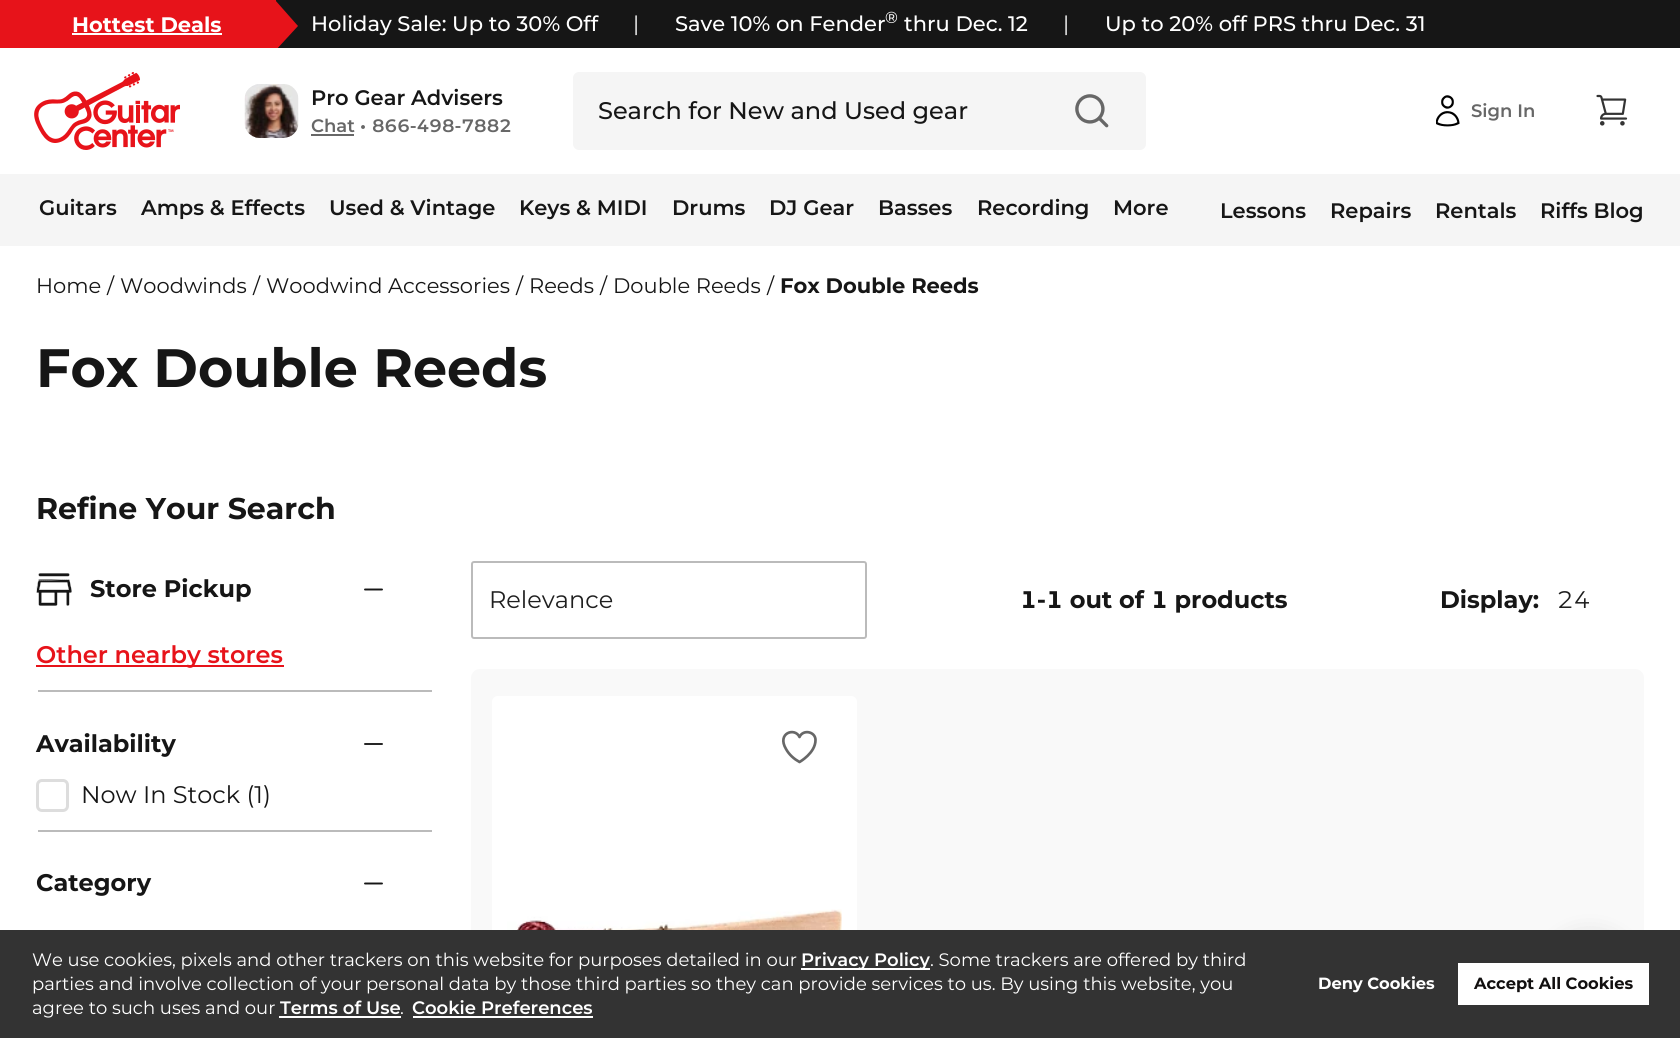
#include <cairo.h>
#include <math.h>
#include <stddef.h>

static cairo_t *c;
static void C(unsigned color){cairo_set_source_rgb(c, (color >> 16) / 255.0, (color >> 8 & 255) / 255.0, (color & 255) / 255.0);}
static void F(const char *family, double size, int italic, int bold){cairo_select_font_face(c, family, italic ? CAIRO_FONT_SLANT_ITALIC : CAIRO_FONT_SLANT_NORMAL,bold ? CAIRO_FONT_WEIGHT_BOLD : CAIRO_FONT_WEIGHT_NORMAL);cairo_set_font_size(c, size);}
static void T(double x, double y, const char *s){cairo_move_to(c, x, y);cairo_show_text(c, s);}
static void R(double x, double y, double w, double h){cairo_rectangle(c, x, y, w, h);cairo_fill(c);}
static void Q(double x, double y, double w, double h, double r){cairo_new_sub_path(c);cairo_arc(c, x + w - r, y + h - r, r, 0, M_PI / 2);cairo_arc(c, x + r, y + h - r, r, M_PI / 2, M_PI);cairo_arc(c, x + r, y + r, r, M_PI, 1.5 * M_PI);cairo_arc(c, x + w - r, y + r, r, 1.5 * M_PI, 2 * M_PI);cairo_close_path(c);}
static void S(double x, double y, double w, double h, double r, double blur, double alpha){cairo_push_group_with_content(c, CAIRO_CONTENT_ALPHA);cairo_set_operator(c, CAIRO_OPERATOR_SOURCE);for (int i = 15; i >= -15 && fmin(w, h) + blur * i / 3 > 0; i -= 2) {double e = blur * i / 6;cairo_set_source_rgba(c, 0, 0, 0, alpha * erfc((i - 1) / 8.5) / 2);Q(x - e, y - e, w + 2 * e, h + 2 * e, fmax(0, fmin(r + e + blur * .6, fmin(w, h) / 2 + e)));cairo_fill(c);}cairo_pattern_t *soft = cairo_pop_group(c);cairo_mask(c, soft);cairo_pattern_destroy(soft);}
static void I(const char *path, double x, double y, double w, double h){cairo_surface_t *image = cairo_image_surface_create_from_png(path);cairo_save(c);cairo_set_source_surface(c, image, x, y);cairo_rectangle(c, x, y, w, h);cairo_fill(c);cairo_restore(c);cairo_surface_destroy(image);}
int main(void) {
cairo_surface_t *surface = cairo_image_surface_create(CAIRO_FORMAT_RGB24, 1680, 1038);
c = cairo_create(surface);
cairo_font_options_t *options = cairo_font_options_create();
cairo_font_options_set_hint_metrics(options, CAIRO_HINT_METRICS_OFF);
cairo_font_options_set_hint_style(options, CAIRO_HINT_STYLE_NONE);
cairo_set_font_options(c, options);
cairo_set_miter_limit(c, 4);
C(0xffffff);
cairo_paint(c);
C(0x161616);
R(276,0,1404,48);
C(0xe7131a);
R(0,0,276,48);
F("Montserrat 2",21,0,1);
C(0xffffff);
T(72,32,"Hottest Deals");
R(72,33,150,2);
cairo_save(c);
cairo_rectangle(c,0,0,1680,48);
cairo_clip(c);
C(0xe7131a);
cairo_new_path(c);
cairo_move_to(c,275,0);
cairo_line_to(c,298,26);
cairo_line_to(c,275,51);
cairo_close_path(c);
cairo_fill(c);
cairo_restore(c);
F("Montserrat 2 Medium",21,0,0);
T(311,31,"Holiday Sale: Up to 30% Off");
F("Montserrat 2",21,0,0);
T(633,31,"|");
F("Montserrat 2 Medium",21,0,0);
T(675,31,"Save 10% on Fender");
F("Montserrat 2 Medium",16,0,0);
T(885,23,"®");
F("Montserrat 2 Medium",21,0,0);
T(904,31,"thru Dec. 12");
F("Montserrat 2",21,0,0);
T(1063,31,"|");
F("Montserrat 2 Medium",21,0,0);
T(1105,31,"Up to 20% off PRS thru Dec. 31");
I("1.png",34,72,146,78);
I("2.png",244,84,55,54);
F("Montserrat SemiBold",21,0,0);
C(0x161616);
T(311,105,"Pro Gear Advisers");
F("Montserrat SemiBold",18,0,0);
C(0x676767);
T(311,132,"Chat");
R(311,134,43,2);
T(360,132,"•");
F("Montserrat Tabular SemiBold",18,0,0);
T(372,132,"866-498-7882");
C(0xf5f5f5);
Q(573,72,573,78,6);
cairo_fill(c);
F("Montserrat Medium",24,0,0);
C(0x161616);
T(598,119,"Search for New and Used gear");
I("3.png",1075,94,34,34);
I("4.png",1436,95,24,32);
F("Montserrat SemiBold",18,0,0);
C(0x676767);
T(1471,117,"Sign In");
I("5.png",1596,94,32,32);
C(0xf5f5f5);
R(0,174,1680,72);
F("Montserrat SemiBold",21,0,0);
C(0x161616);
T(39,215,"Guitars");
T(141,215,"Amps & Effects");
T(329,215,"Used & Vintage");
T(519,215,"Keys & MIDI");
T(672,215,"Drums");
T(769,215,"DJ Gear");
T(878,215,"Basses");
T(977,215,"Recording");
T(1113,215,"More");
T(1220,218,"Lessons");
T(1330,218,"Repairs");
T(1435,218,"Rentals");
T(1540,218,"Riffs Blog");
F("Montserrat",21,0,0);
T(36,293,"Home");
T(107,293,"/");
T(120,293,"Woodwinds");
T(253,293,"/");
T(266,293,"Woodwind Accessories");
T(516,293,"/");
T(529,293,"Reeds");
T(600,293,"/");
T(613,293,"Double Reeds");
T(767,293,"/");
F("Montserrat",21,0,1);
T(780,293,"Fox Double Reeds");
F("Montserrat",54,0,1);
T(36,387,"Fox Double Reeds");
F("Montserrat",30,0,1);
T(36,519,"Refine Your Search");
C(0xbbbbbb);
R(38,690,394,2);
I("6.png",36,573,36,33);
F("Montserrat",24,0,1);
C(0x161616);
T(90,597,"Store Pickup");
cairo_new_path(c);
cairo_move_to(c,365,589.5);
cairo_line_to(c,382,589.5);
cairo_set_line_width(c,1.9);
cairo_set_line_cap(c,CAIRO_LINE_CAP_ROUND);
cairo_set_line_join(c,CAIRO_LINE_JOIN_ROUND);
cairo_stroke(c);
C(0xe7131a);
R(36,665,248,2);
F("Montserrat SemiBold",24,0,0);
T(36,663,"Other nearby stores");
C(0xbbbbbb);
R(38,830,394,2);
F("Montserrat",24,0,1);
C(0x161616);
T(36,752,"Availability");
cairo_new_path(c);
cairo_move_to(c,365,744);
cairo_line_to(c,382,744);
cairo_stroke(c);
Q(37.5,780.5,30,30,4.5);
C(0xdddddd);
cairo_set_line_width(c,3);
cairo_set_line_cap(c,CAIRO_LINE_CAP_BUTT);
cairo_set_line_join(c,CAIRO_LINE_JOIN_MITER);
cairo_stroke(c);
F("Montserrat",24,0,0);
C(0x161616);
T(81,803,"Now In Stock (1)");
F("Montserrat",24,0,1);
T(36,891,"Category");
cairo_new_path(c);
cairo_move_to(c,365,883.5);
cairo_line_to(c,382,883.5);
cairo_set_line_width(c,1.9);
cairo_set_line_cap(c,CAIRO_LINE_CAP_ROUND);
cairo_set_line_join(c,CAIRO_LINE_JOIN_ROUND);
cairo_stroke(c);
Q(472,562,394,76,2);
C(0xbbbbbb);
cairo_set_line_width(c,2);
cairo_set_line_cap(c,CAIRO_LINE_CAP_BUTT);
cairo_set_line_join(c,CAIRO_LINE_JOIN_MITER);
cairo_stroke(c);
F("Montserrat",24,0,0);
C(0x1f1f1f);
T(489,608,"Relevance");
F("Montserrat Tabular",24,0,1);
C(0x161616);
T(1020,608,"1-1 out of 1 products");
F("Montserrat",24,0,1);
T(1440,608,"Display:");
F("Montserrat Tabular",24,0,0);
C(0x1f1f1f);
T(1557,608,"24");
C(0xf9f9f9);
Q(471,669,1173,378,9);
cairo_fill(c);
C(0xffffff);
Q(492,696,365,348,6);
cairo_fill(c);
cairo_new_path(c);
cairo_move_to(c,815.5,740);
cairo_curve_to(c,815.5,731.5,803,729,799.5,737);
cairo_curve_to(c,795,727,776.5,733,786,749);
cairo_curve_to(c,789,754.5,794,759,799.5,762);
cairo_curve_to(c,799.5,762,815.5,753,815.5,740);
cairo_close_path(c);
C(0x676767);
cairo_set_line_width(c,2.7);
cairo_set_line_cap(c,CAIRO_LINE_CAP_ROUND);
cairo_set_line_join(c,CAIRO_LINE_JOIN_ROUND);
cairo_stroke(c);
I("7.png",507,909,335,21);
C(0x000000);
S(1548,936,84,84,42,12,.13);
C(0x333333);
R(0,930,1680,108);
F("Montserrat 2",18,0,0);
C(0xffffff);
T(32,966,"We use cookies, pixels and other trackers on this website for purposes detailed in our");
R(801,968,129,2);
F("Montserrat 2 SemiBold",18,0,0);
T(801,966,"Privacy Policy");
F("Montserrat 2",18,0,0);
T(930,966,". Some trackers are offered by third");
T(32,990,"parties and involve collection of your personal data by those third parties so they can provide services to us. By using this website, you");
T(32,1014,"agree to such uses and our");
F("Montserrat 2 SemiBold",18,0,0);
T(280,1014,"Terms of Use");
R(279,1016,122,2);
F("Montserrat 2",18,0,0);
T(400,1014,".");
F("Montserrat 2 SemiBold",18,0,0);
T(412,1014,"Cookie Preferences");
R(413,1016,180,2);
F("Montserrat 2",16.25,0,1);
T(1318,989,"Deny Cookies");
R(1458,963,191,42);
C(0x121010);
T(1474,989,"Accept All Cookies");
cairo_surface_write_to_png(surface, "o.png");
cairo_font_options_destroy(options);
cairo_destroy(c);
cairo_surface_destroy(surface);
return 0;
}
